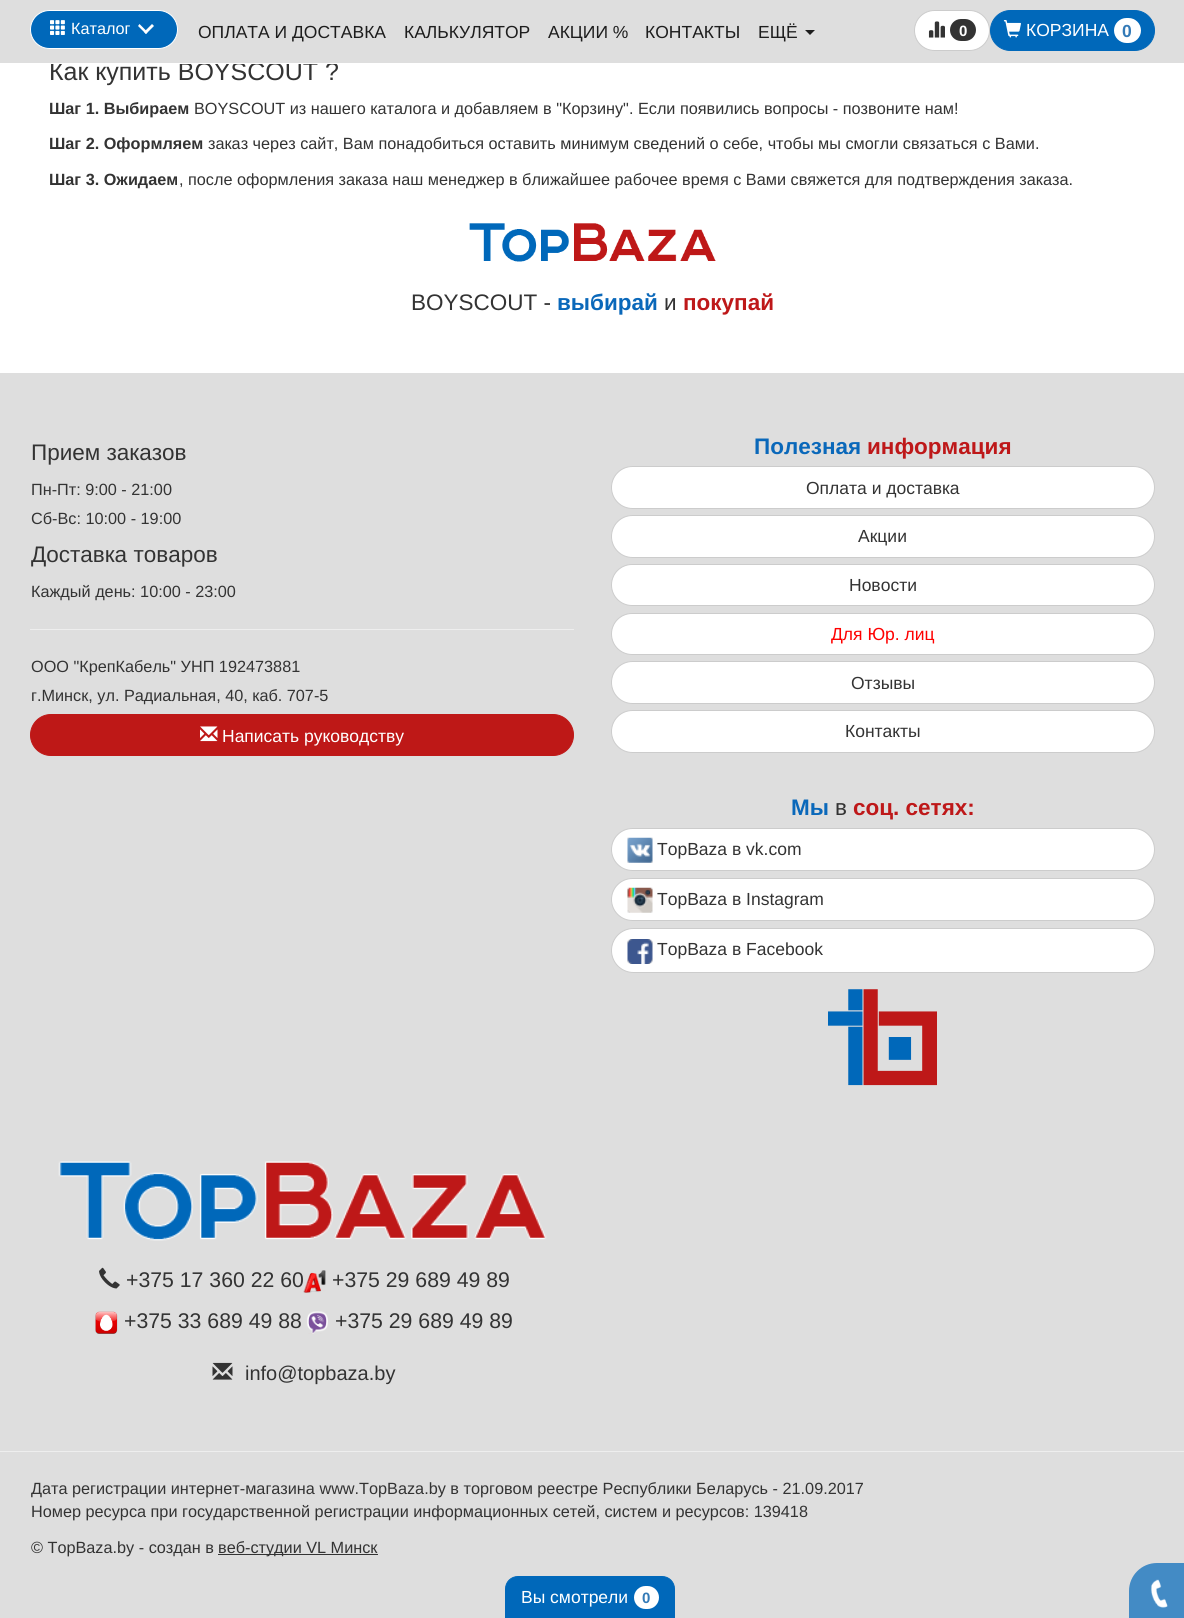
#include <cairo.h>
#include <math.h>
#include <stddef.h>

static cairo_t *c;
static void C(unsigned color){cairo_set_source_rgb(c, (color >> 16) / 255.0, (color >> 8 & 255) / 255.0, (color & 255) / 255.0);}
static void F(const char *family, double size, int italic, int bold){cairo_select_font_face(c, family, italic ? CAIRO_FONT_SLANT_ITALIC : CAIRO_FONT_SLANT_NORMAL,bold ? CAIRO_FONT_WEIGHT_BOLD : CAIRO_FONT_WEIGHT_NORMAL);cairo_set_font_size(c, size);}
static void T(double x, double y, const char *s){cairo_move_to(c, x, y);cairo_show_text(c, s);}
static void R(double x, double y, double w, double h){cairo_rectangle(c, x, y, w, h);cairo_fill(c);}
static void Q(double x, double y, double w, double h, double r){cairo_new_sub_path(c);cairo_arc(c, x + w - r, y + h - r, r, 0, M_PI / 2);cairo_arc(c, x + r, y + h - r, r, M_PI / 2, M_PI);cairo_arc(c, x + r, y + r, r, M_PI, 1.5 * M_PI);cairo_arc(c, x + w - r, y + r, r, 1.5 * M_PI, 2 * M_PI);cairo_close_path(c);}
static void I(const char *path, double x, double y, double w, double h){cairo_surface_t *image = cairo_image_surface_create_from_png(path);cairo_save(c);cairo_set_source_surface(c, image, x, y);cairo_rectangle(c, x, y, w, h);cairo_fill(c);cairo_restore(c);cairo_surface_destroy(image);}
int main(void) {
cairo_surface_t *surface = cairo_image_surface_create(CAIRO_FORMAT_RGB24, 1184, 1618);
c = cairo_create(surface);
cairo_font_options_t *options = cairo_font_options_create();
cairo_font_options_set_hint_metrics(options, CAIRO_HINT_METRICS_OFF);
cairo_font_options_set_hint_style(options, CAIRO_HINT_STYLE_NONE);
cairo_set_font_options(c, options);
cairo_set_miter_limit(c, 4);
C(0xffffff);
cairo_paint(c);
F("Liberation Sans",25,0,0);
C(0x333333);
T(49,80,"Как купить BOYSCOUT ?");
C(0xdedede);
R(0,0,1184,63);
C(0xffffff);
R(51,63,286,1);
C(0x0068ba);
Q(30.5,10.5,147,38,19);
cairo_fill_preserve(c);
C(0xffffff);
cairo_set_line_width(c,1);
cairo_stroke(c);
I("1.png",50,20,15,15);
F("Liberation Sans",16.25,0,0);
T(71,34,"Каталог");
cairo_new_path(c);
cairo_move_to(c,139.5,24);
cairo_line_to(c,147.5,32);
cairo_line_to(c,146,34);
cairo_line_to(c,138,26);
cairo_close_path(c);
cairo_fill(c);
cairo_new_path(c);
cairo_move_to(c,144,32);
cairo_line_to(c,152,24);
cairo_line_to(c,154,26);
cairo_line_to(c,146,34);
cairo_close_path(c);
cairo_fill(c);
F("Liberation Sans",17.5,0,0);
C(0x1d1d1d);
T(198,38,"ОПЛАТА И ДОСТАВКА");
T(404,38,"КАЛЬКУЛЯТОР");
T(548,38,"АКЦИИ %");
T(645,38,"КОНТАКТЫ");
T(758,38,"ЕЩЁ");
cairo_new_path(c);
cairo_move_to(c,805,30);
cairo_line_to(c,815,30);
cairo_line_to(c,810,35);
cairo_close_path(c);
cairo_fill(c);
C(0xffffff);
Q(914.5,10.5,75,40,20);
cairo_fill_preserve(c);
C(0xcccccc);
cairo_stroke(c);
I("2.png",928,21,17,17);
C(0x333333);
Q(950,19,26,22,11);
cairo_fill(c);
F("Liberation Sans",15,0,1);
C(0xffffff);
T(959,36,"0");
C(0x0068ba);
Q(990.5,10.5,164,40,20);
cairo_fill_preserve(c);
cairo_stroke(c);
I("3.png",1003,20,18,18);
F("Liberation Sans",17.5,0,0);
C(0xffffff);
T(1026,36,"КОРЗИНА");
Q(1114,18,27,25,12.5);
cairo_fill(c);
F("Liberation Sans",17.5,0,1);
C(0x337ab7);
T(1122,37,"0");
F("Liberation Sans",16.25,0,1);
C(0x333333);
T(49,114,"Шаг 1. Выбираем");
F("Liberation Sans",16.25,0,0);
T(194,114,"BOYSCOUT из нашего каталога и добавляем в \"Корзину\". Если появились вопросы - позвоните нам!");
F("Liberation Sans",16.25,0,1);
T(49,149,"Шаг 2. Оформляем");
F("Liberation Sans",16.25,0,0);
T(208,149,"заказ через сайт, Вам понадобиться оставить минимум сведений о себе, чтобы мы смогли связаться с Вами.");
F("Liberation Sans",16.25,0,1);
T(49,185,"Шаг 3. Ожидаем");
F("Liberation Sans",16.25,0,0);
T(179,185,", после оформления заказа наш менеджер в ближайшее рабочее время с Вами свяжется для подтверждения заказа.");
I("4.png",469,223,247,39);
F("Liberation Sans",22.5,0,0);
T(411,310,"BOYSCOUT -");
F("Liberation Sans",22.5,0,1);
C(0x0a68ba);
T(557,310,"выбирай");
F("Liberation Sans",22.5,0,0);
C(0x333333);
T(664,310,"и");
F("Liberation Sans",22.5,0,1);
C(0xbe1819);
T(683,310,"покупай");
C(0xdedede);
R(0,373,1184,1245);
F("Liberation Sans",22.5,0,0);
C(0x333333);
T(31,460,"Прием заказов");
F("Liberation Sans",16.25,0,0);
T(31,495,"Пн-Пт: 9:00 - 21:00");
T(31,524,"Сб-Вс: 10:00 - 19:00");
F("Liberation Sans",22.5,0,0);
T(31,562,"Доставка товаров");
F("Liberation Sans",16.25,0,0);
T(31,597,"Каждый день: 10:00 - 23:00");
C(0xeeeeee);
R(30,629,544,1);
C(0x333333);
T(31,672,"ООО \"КрепКабель\" УНП 192473881");
T(31,701,"г.Минск, ул. Радиальная, 40, каб. 707-5");
C(0xbe1817);
Q(30.5,714.5,543,41,20.5);
cairo_fill_preserve(c);
cairo_stroke(c);
I("5.png",200,726,18,16);
F("Liberation Sans",17.5,0,0);
C(0xffffff);
T(222,742,"Написать руководству");
F("Liberation Sans",22.5,0,1);
C(0x0a68ba);
T(754,454,"Полезная");
C(0xbe1819);
T(867,454,"информация");
C(0xffffff);
Q(611.5,466.5,543,42,21);
cairo_fill_preserve(c);
C(0xcccccc);
cairo_stroke(c);
F("Liberation Sans",17.5,0,0);
C(0x333333);
T(806,494,"Оплата и доставка");
C(0xffffff);
Q(611.5,515.5,543,42,21);
cairo_fill_preserve(c);
C(0xcccccc);
cairo_stroke(c);
C(0x333333);
T(858,542,"Акции");
C(0xffffff);
Q(611.5,564.5,543,41,20.5);
cairo_fill_preserve(c);
C(0xcccccc);
cairo_stroke(c);
C(0x333333);
T(849,591,"Новости");
C(0xffffff);
Q(611.5,613.5,543,41,20.5);
cairo_fill_preserve(c);
C(0xcccccc);
cairo_stroke(c);
C(0xff0000);
T(831,640,"Для Юр. лиц");
C(0xffffff);
Q(611.5,661.5,543,42,21);
cairo_fill_preserve(c);
C(0xcccccc);
cairo_stroke(c);
C(0x333333);
T(851,689,"Отзывы");
C(0xffffff);
Q(611.5,710.5,543,42,21);
cairo_fill_preserve(c);
C(0xcccccc);
cairo_stroke(c);
C(0x333333);
T(845,737,"Контакты");
F("Liberation Sans",22.5,0,1);
C(0x0a68ba);
T(791,815,"Мы");
F("Liberation Sans",22.5,0,0);
C(0x333333);
T(835,815,"в");
F("Liberation Sans",22.5,0,1);
C(0xbe1819);
T(853,815,"соц. сетях:");
C(0xffffff);
Q(611.5,828.5,543,42,21);
cairo_fill_preserve(c);
C(0xcccccc);
cairo_stroke(c);
I("6.png",627,837,26,26);
F("Liberation Sans",17.5,0,0);
C(0x333333);
T(657,855,"TopBaza в vk.com");
C(0xffffff);
Q(611.5,878.5,543,42,21);
cairo_fill_preserve(c);
C(0xcccccc);
cairo_stroke(c);
I("7.png",627,887,26,26);
C(0x333333);
T(657,905,"TopBaza в Instagram");
C(0xffffff);
Q(611.5,928.5,543,44,22);
cairo_fill_preserve(c);
C(0xcccccc);
cairo_stroke(c);
I("8.png",627,939,26,25);
C(0x333333);
T(657,955,"TopBaza в Facebook");
I("9.png",828,989,109,97);
I("10.png",58,1161,489,80);
I("11.png",99,1267,21,22);
F("Liberation Sans",21.25,0,0);
T(126,1287,"+375 17 360 22 60");
I("12.png",303,1270,23,23);
T(332,1287,"+375 29 689 49 89");
I("13.png",95,1311,23,23);
T(124,1328,"+375 33 689 49 88");
I("14.png",307,1311,21,23);
T(335,1328,"+375 29 689 49 89");
I("15.png",212,1362,21,18);
F("Liberation Sans",20,0,0);
T(245,1380,"info@topbaza.by");
C(0xeeeeee);
R(0,1451,1184,1);
F("Liberation Sans",16.25,0,0);
C(0x333333);
T(31,1494,"Дата регистрации интернет-магазина www.TopBaza.by в торговом реестре Республики Беларусь - 21.09.2017");
T(31,1517,"Номер ресурса при государственной регистрации информационных сетей, систем и ресурсов: 139418");
T(31,1553,"© TopBaza.by - создан в");
R(218,1554,160,1);
T(218,1553,"веб-студии VL Минск");
C(0x438bc5);
cairo_new_path(c);
cairo_move_to(c,1157,1563);
cairo_line_to(c,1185,1563);
cairo_line_to(c,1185,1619);
cairo_line_to(c,1129,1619);
cairo_line_to(c,1129,1591);
cairo_curve_to(c,1129,1575.5,1141.5,1563,1157,1563);
cairo_close_path(c);
cairo_fill(c);
I("16.png",1150,1579,18,29);
C(0x0068ba);
cairo_new_path(c);
cairo_move_to(c,518,1576.5);
cairo_line_to(c,662,1576.5);
cairo_curve_to(c,669,1576.5,674.5,1582,674.5,1589);
cairo_line_to(c,674.5,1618.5);
cairo_line_to(c,505.5,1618.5);
cairo_line_to(c,505.5,1589);
cairo_curve_to(c,505.5,1582,511,1576.5,518,1576.5);
cairo_close_path(c);
cairo_fill_preserve(c);
cairo_stroke(c);
F("Liberation Sans",17.5,0,0);
C(0xffffff);
T(521,1603,"Вы смотрели");
Q(634,1586,25,23,11.5);
cairo_fill(c);
F("Liberation Sans",15,0,1);
C(0x337ab7);
T(642,1603,"0");
cairo_surface_write_to_png(surface, "o.png");
cairo_font_options_destroy(options);
cairo_destroy(c);
cairo_surface_destroy(surface);
return 0;
}
